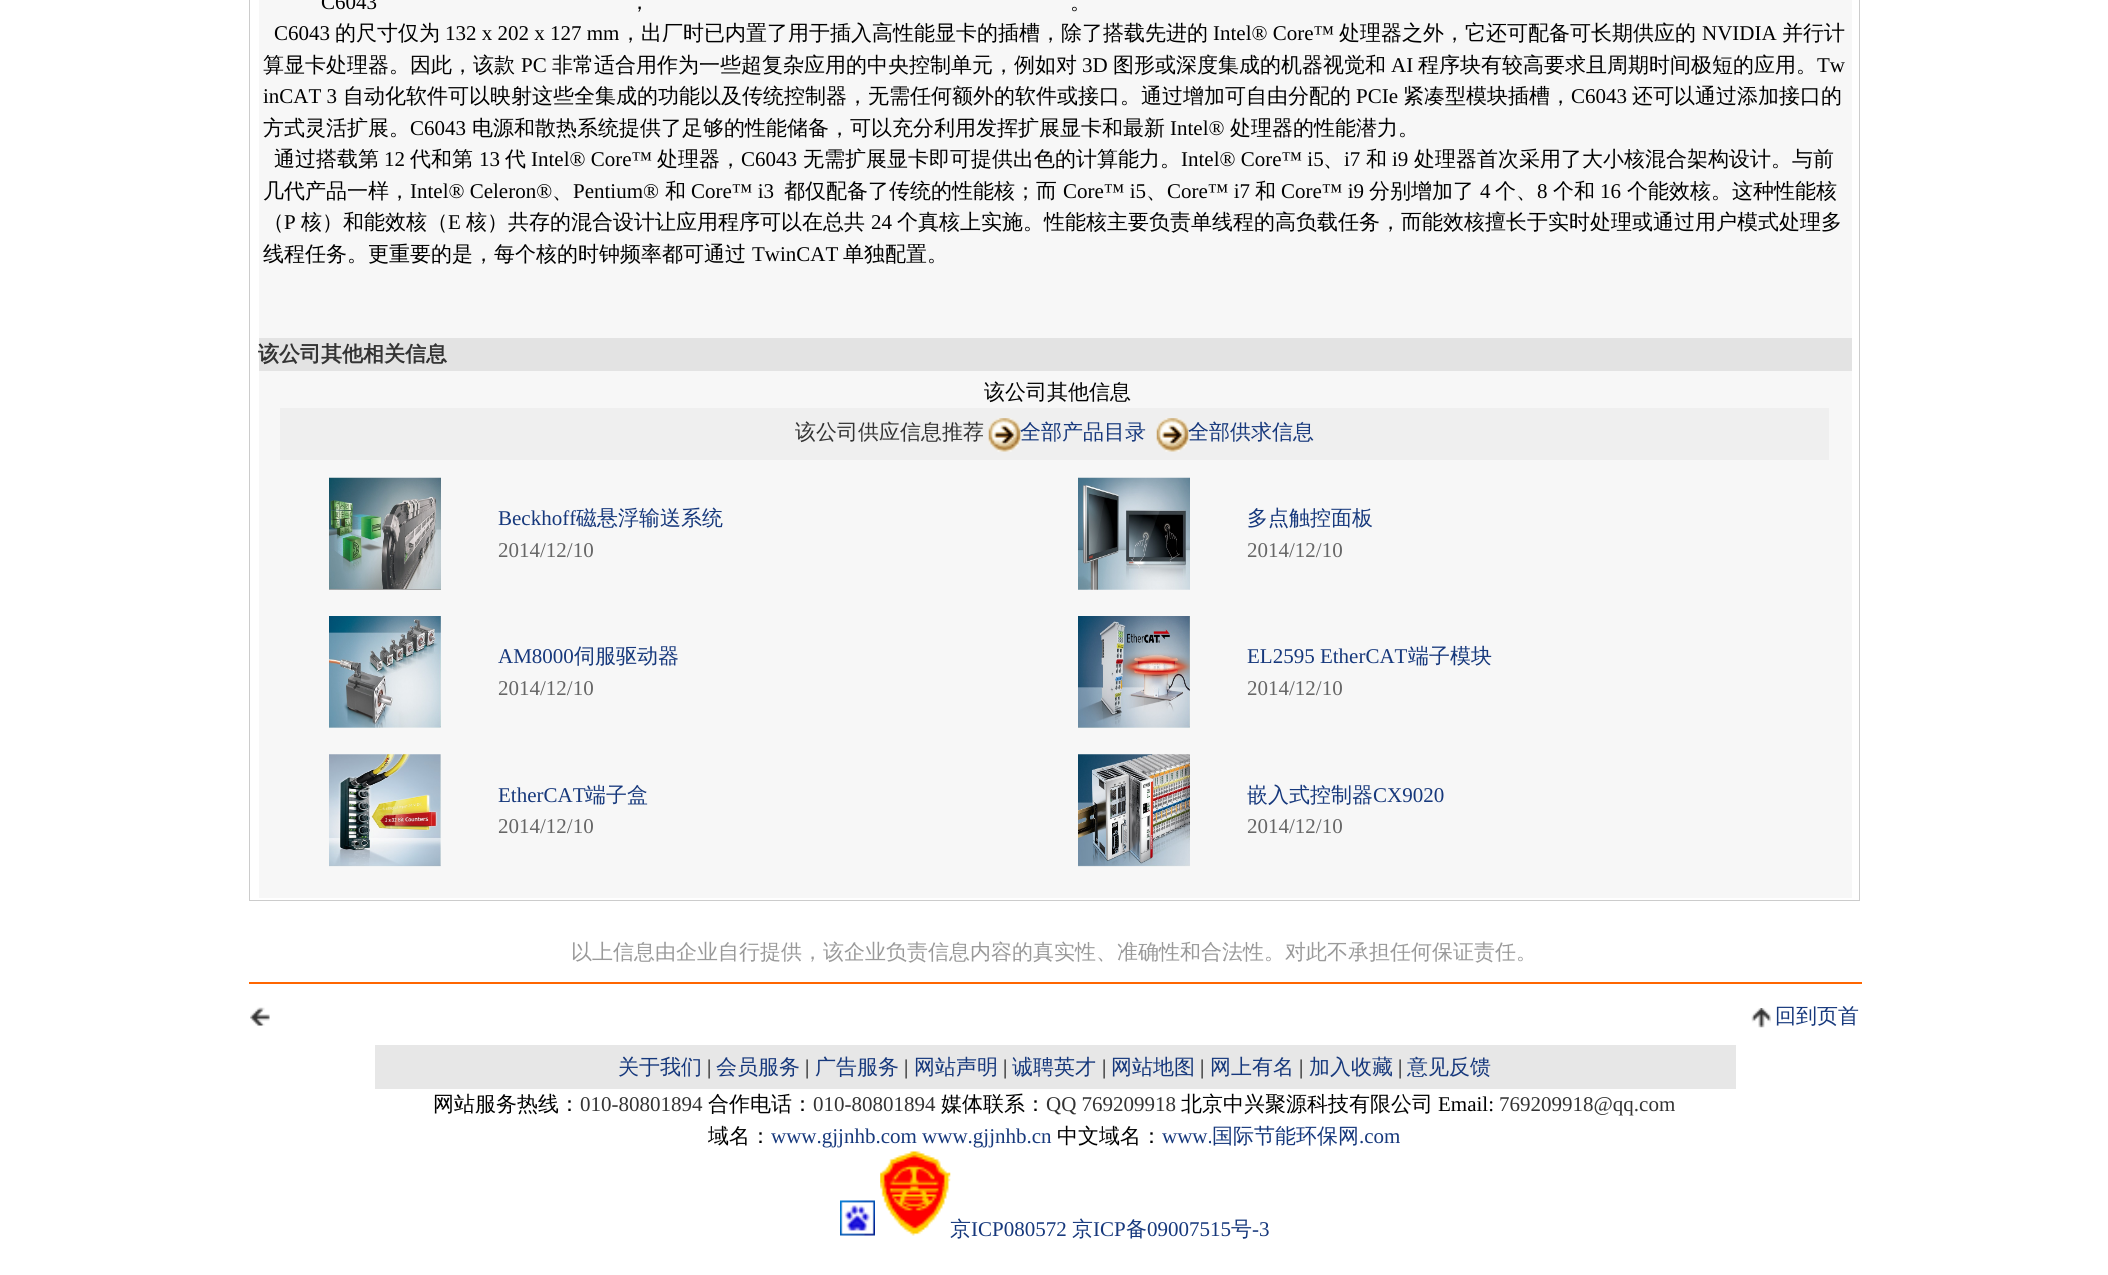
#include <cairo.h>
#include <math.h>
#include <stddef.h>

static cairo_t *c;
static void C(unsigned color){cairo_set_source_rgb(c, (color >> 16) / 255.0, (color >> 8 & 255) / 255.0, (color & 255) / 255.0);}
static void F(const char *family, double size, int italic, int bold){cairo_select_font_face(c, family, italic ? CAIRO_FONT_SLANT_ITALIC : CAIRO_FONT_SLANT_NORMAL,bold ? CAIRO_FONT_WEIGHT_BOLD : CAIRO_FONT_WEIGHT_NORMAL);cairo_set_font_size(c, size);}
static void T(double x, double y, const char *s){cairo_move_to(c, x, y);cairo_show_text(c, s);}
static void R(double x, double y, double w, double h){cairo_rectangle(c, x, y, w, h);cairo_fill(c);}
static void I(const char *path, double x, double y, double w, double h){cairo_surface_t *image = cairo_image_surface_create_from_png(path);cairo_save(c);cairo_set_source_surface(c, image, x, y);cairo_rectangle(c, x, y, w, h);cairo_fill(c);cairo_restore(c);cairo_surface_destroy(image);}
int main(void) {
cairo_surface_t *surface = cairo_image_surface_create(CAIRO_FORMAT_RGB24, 2108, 1275);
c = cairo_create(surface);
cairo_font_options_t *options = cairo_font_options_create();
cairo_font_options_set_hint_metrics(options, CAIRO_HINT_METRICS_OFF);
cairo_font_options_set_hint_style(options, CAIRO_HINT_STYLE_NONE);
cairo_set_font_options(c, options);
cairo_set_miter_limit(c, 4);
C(0xffffff);
cairo_paint(c);
C(0xcccccc);
R(249,0,1611,901);
C(0xffffff);
R(250,0,1609,900);
C(0xf7f7f7);
R(259,0,1593,338);
F("Liberation Serif",21,0,0);
C(0x000000);
T(321,9,"C6043");
F("WenQuanYi Zen Hei Medium",21,0,0);
T(629,9,"，");
T(1070,9,"。");
F("Liberation Serif",21,0,0);
T(274,40,"C6043");
F("WenQuanYi Zen Hei Medium",21,0,0);
T(335,40,"的尺寸仅为");
F("Liberation Serif",21,0,0);
T(445,40,"132 x 202 x 127 mm");
F("WenQuanYi Zen Hei Medium",21,0,0);
T(620,40,"，出厂时已内置了用于插入高性能显卡的插槽，除了搭载先进的");
F("Liberation Serif",21,0,0);
T(1213,40,"Intel® Core™");
F("WenQuanYi Zen Hei Medium",21,0,0);
T(1339,40,"处理器之外，它还可配备可长期供应的");
F("Liberation Serif",21,0,0);
T(1702,40,"NVIDIA");
F("WenQuanYi Zen Hei Medium",21,0,0);
T(1782,40,"并行计");
T(263,72,"算显卡处理器。因此，该款");
F("Liberation Serif",21,0,0);
T(521,72,"PC");
F("WenQuanYi Zen Hei Medium",21,0,0);
T(552,72,"非常适合用作为一些超复杂应用的中央控制单元，例如对");
F("Liberation Serif",21,0,0);
T(1082,72,"3D");
F("WenQuanYi Zen Hei Medium",21,0,0);
T(1113,72,"图形或深度集成的机器视觉和");
F("Liberation Serif",21,0,0);
T(1391,72,"AI");
F("WenQuanYi Zen Hei Medium",21,0,0);
T(1418,72,"程序块有较高要求且周期时间极短的应用。");
F("Liberation Serif",21,0,0);
T(1817,72,"Tw");
T(263,103,"inCAT 3");
F("WenQuanYi Zen Hei Medium",21,0,0);
T(343,103,"自动化软件可以映射这些全集成的功能以及传统控制器，无需任何额外的软件或接口。通过增加可自由分配的");
F("Liberation Serif",21,0,0);
T(1356,103,"PCIe");
F("WenQuanYi Zen Hei Medium",21,0,0);
T(1403,103,"紧凑型模块插槽，");
F("Liberation Serif",21,0,0);
T(1571,103,"C6043");
F("WenQuanYi Zen Hei Medium",21,0,0);
T(1632,103,"还可以通过添加接口的");
T(263,135,"方式灵活扩展。");
F("Liberation Serif",21,0,0);
T(410,135,"C6043");
F("WenQuanYi Zen Hei Medium",21,0,0);
T(472,135,"电源和散热系统提供了足够的性能储备，可以充分利用发挥扩展显卡和最新");
F("Liberation Serif",21,0,0);
T(1170,135,"Intel®");
F("WenQuanYi Zen Hei Medium",21,0,0);
T(1230,135,"处理器的性能潜力。");
T(274,166,"通过搭载第");
F("Liberation Serif",21,0,0);
T(384,166,"12");
F("WenQuanYi Zen Hei Medium",21,0,0);
T(410,166,"代和第");
F("Liberation Serif",21,0,0);
T(479,166,"13");
F("WenQuanYi Zen Hei Medium",21,0,0);
T(505,166,"代");
F("Liberation Serif",21,0,0);
T(531,166,"Intel® Core™");
F("WenQuanYi Zen Hei Medium",21,0,0);
T(657,166,"处理器，");
F("Liberation Serif",21,0,0);
T(741,166,"C6043");
F("WenQuanYi Zen Hei Medium",21,0,0);
T(803,166,"无需扩展显卡即可提供出色的计算能力。");
F("Liberation Serif",21,0,0);
T(1181,166,"Intel® Core™ i5");
F("WenQuanYi Zen Hei Medium",21,0,0);
T(1323,166,"、");
F("Liberation Serif",21,0,0);
T(1344,166,"i7");
F("WenQuanYi Zen Hei Medium",21,0,0);
T(1366,166,"和");
F("Liberation Serif",21,0,0);
T(1392,166,"i9");
F("WenQuanYi Zen Hei Medium",21,0,0);
T(1414,166,"处理器首次采用了大小核混合架构设计。与前");
T(263,198,"几代产品一样，");
F("Liberation Serif",21,0,0);
T(410,198,"Intel® Celeron®");
F("WenQuanYi Zen Hei Medium",21,0,0);
T(552,198,"、");
F("Liberation Serif",21,0,0);
T(573,198,"Pentium®");
F("WenQuanYi Zen Hei Medium",21,0,0);
T(665,198,"和");
F("Liberation Serif",21,0,0);
T(691,198,"Core™ i3");
F("WenQuanYi Zen Hei Medium",21,0,0);
T(784,198,"都仅配备了传统的性能核；而");
F("Liberation Serif",21,0,0);
T(1063,198,"Core™ i5");
F("WenQuanYi Zen Hei Medium",21,0,0);
T(1146,198,"、");
F("Liberation Serif",21,0,0);
T(1167,198,"Core™ i7");
F("WenQuanYi Zen Hei Medium",21,0,0);
T(1255,198,"和");
F("Liberation Serif",21,0,0);
T(1281,198,"Core™ i9");
F("WenQuanYi Zen Hei Medium",21,0,0);
T(1369,198,"分别增加了");
F("Liberation Serif",21,0,0);
T(1480,198,"4");
F("WenQuanYi Zen Hei Medium",21,0,0);
T(1495,198,"个、");
F("Liberation Serif",21,0,0);
T(1537,198,"8");
F("WenQuanYi Zen Hei Medium",21,0,0);
T(1553,198,"个和");
F("Liberation Serif",21,0,0);
T(1600,198,"16");
F("WenQuanYi Zen Hei Medium",21,0,0);
T(1627,198,"个能效核。这种性能核");
T(263,229,"（");
F("Liberation Serif",21,0,0);
T(284,229,"P");
F("WenQuanYi Zen Hei Medium",21,0,0);
T(301,229,"核）和能效核（");
F("Liberation Serif",21,0,0);
T(448,229,"E");
F("WenQuanYi Zen Hei Medium",21,0,0);
T(466,229,"核）共存的混合设计让应用程序可以在总共");
F("Liberation Serif",21,0,0);
T(871,229,"24");
F("WenQuanYi Zen Hei Medium",21,0,0);
T(897,229,"个真核上实施。性能核主要负责单线程的高负载任务，而能效核擅长于实时处理或通过用户模式处理多");
T(263,261,"线程任务。更重要的是，每个核的时钟频率都可通过");
F("Liberation Serif",21,0,0);
T(752,261,"TwinCAT");
F("WenQuanYi Zen Hei Medium",21,0,0);
T(843,261,"单独配置。");
C(0xe3e3e3);
R(259,338,1593,33);
F("WenQuanYi Zen Hei",21,0,1);
C(0x333333);
T(258,361,"该公司其他相关信息");
C(0xf7f7f7);
R(259,371,1593,527);
F("WenQuanYi Zen Hei Medium",21,0,0);
C(0x000000);
T(984,399,"该公司其他信息");
C(0xefefef);
R(280,408,1549,52);
C(0x333333);
T(795,439,"该公司供应信息推荐");
I("1.png",988,418,33,34);
C(0x16387c);
T(1020,439,"全部产品目录");
I("2.png",1156,418,33,34);
T(1188,439,"全部供求信息");
I("3.png",329,477,112,113);
F("Liberation Serif",21,0,0);
T(498,525,"Beckhoff");
F("WenQuanYi Zen Hei Medium",21,0,0);
T(576,525,"磁悬浮输送系统");
F("Liberation Serif",21,0,0);
C(0x666666);
T(498,557,"2014/12/10");
I("4.png",1078,477,112,113);
F("WenQuanYi Zen Hei Medium",21,0,0);
C(0x16387c);
T(1247,525,"多点触控面板");
F("Liberation Serif",21,0,0);
C(0x666666);
T(1247,557,"2014/12/10");
I("5.png",329,616,112,112);
C(0x16387c);
T(498,663,"AM8000");
F("WenQuanYi Zen Hei Medium",21,0,0);
T(574,663,"伺服驱动器");
F("Liberation Serif",21,0,0);
C(0x666666);
T(498,695,"2014/12/10");
I("6.png",1078,616,112,112);
C(0x16387c);
T(1247,663,"EL2595 EtherCAT");
F("WenQuanYi Zen Hei Medium",21,0,0);
T(1408,663,"端子模块");
F("Liberation Serif",21,0,0);
C(0x666666);
T(1247,695,"2014/12/10");
I("7.png",329,754,112,113);
C(0x16387c);
T(498,802,"EtherCAT");
F("WenQuanYi Zen Hei Medium",21,0,0);
T(585,802,"端子盒");
F("Liberation Serif",21,0,0);
C(0x666666);
T(498,833,"2014/12/10");
I("8.png",1078,754,112,113);
F("WenQuanYi Zen Hei Medium",21,0,0);
C(0x16387c);
T(1247,802,"嵌入式控制器");
F("Liberation Serif",21,0,0);
T(1373,802,"CX9020");
C(0x666666);
T(1247,833,"2014/12/10");
F("WenQuanYi Zen Hei Medium",21,0,0);
C(0x999999);
T(571,959,"以上信息由企业自行提供，该企业负责信息内容的真实性、准确性和合法性。对此不承担任何保证责任。");
C(0xff6600);
R(249,982,1613,2);
I("9.png",250,1007,20,19);
I("10.png",1751,1008,20,20);
C(0x16387c);
T(1775,1023,"回到页首");
C(0xe7e7e7);
R(375,1045,1361,44);
C(0x16387c);
T(618,1074,"关于我们");
F("Liberation Serif",21,0,0);
C(0x000000);
T(707,1074,"|");
F("WenQuanYi Zen Hei Medium",21,0,0);
C(0x16387c);
T(716,1074,"会员服务");
F("Liberation Serif",21,0,0);
C(0x000000);
T(805,1074,"|");
F("WenQuanYi Zen Hei Medium",21,0,0);
C(0x16387c);
T(815,1074,"广告服务");
F("Liberation Serif",21,0,0);
C(0x000000);
T(904,1074,"|");
F("WenQuanYi Zen Hei Medium",21,0,0);
C(0x16387c);
T(914,1074,"网站声明");
F("Liberation Serif",21,0,0);
C(0x000000);
T(1003,1074,"|");
F("WenQuanYi Zen Hei Medium",21,0,0);
C(0x16387c);
T(1012,1074,"诚聘英才");
F("Liberation Serif",21,0,0);
C(0x000000);
T(1102,1074,"|");
F("WenQuanYi Zen Hei Medium",21,0,0);
C(0x16387c);
T(1111,1074,"网站地图");
F("Liberation Serif",21,0,0);
C(0x000000);
T(1200,1074,"|");
F("WenQuanYi Zen Hei Medium",21,0,0);
C(0x16387c);
T(1210,1074,"网上有名");
F("Liberation Serif",21,0,0);
C(0x000000);
T(1299,1074,"|");
F("WenQuanYi Zen Hei Medium",21,0,0);
C(0x16387c);
T(1309,1074,"加入收藏");
F("Liberation Serif",21,0,0);
C(0x000000);
T(1398,1074,"|");
F("WenQuanYi Zen Hei Medium",21,0,0);
C(0x16387c);
T(1407,1074,"意见反馈");
C(0x000000);
T(433,1111,"网站服务热线：");
F("Liberation Serif",21,0,0);
C(0x333333);
T(580,1111,"010-80801894");
F("WenQuanYi Zen Hei Medium",21,0,0);
C(0x000000);
T(708,1111,"合作电话：");
F("Liberation Serif",21,0,0);
C(0x333333);
T(813,1111,"010-80801894");
F("WenQuanYi Zen Hei Medium",21,0,0);
C(0x000000);
T(941,1111,"媒体联系：");
F("Liberation Serif",21,0,0);
C(0x333333);
T(1046,1111,"QQ 769209918");
F("WenQuanYi Zen Hei Medium",21,0,0);
C(0x000000);
T(1181,1111,"北京中兴聚源科技有限公司");
F("Liberation Serif",21,0,0);
T(1438,1111,"Email:");
C(0x333333);
T(1499,1111,"769209918@qq.com");
F("WenQuanYi Zen Hei Medium",21,0,0);
C(0x000000);
T(708,1143,"域名：");
F("Liberation Serif",21,0,0);
C(0x16387c);
T(771,1143,"www.gjjnhb.com www.gjjnhb.cn");
F("WenQuanYi Zen Hei Medium",21,0,0);
C(0x000000);
T(1057,1143,"中文域名：");
F("Liberation Serif",21,0,0);
C(0x16387c);
T(1162,1143,"www.");
F("WenQuanYi Zen Hei Medium",21,0,0);
T(1212,1143,"国际节能环保网");
F("Liberation Serif",21,0,0);
T(1359,1143,".com");
I("11.png",840,1200,35,36);
I("12.png",880,1151,71,85);
F("WenQuanYi Zen Hei Medium",21,0,0);
T(950,1236,"京");
F("Liberation Serif",21,0,0);
T(971,1236,"ICP080572");
F("WenQuanYi Zen Hei Medium",21,0,0);
T(1072,1236,"京");
F("Liberation Serif",21,0,0);
T(1093,1236,"ICP");
F("WenQuanYi Zen Hei Medium",21,0,0);
T(1126,1236,"备");
F("Liberation Serif",21,0,0);
T(1147,1236,"09007515");
F("WenQuanYi Zen Hei Medium",21,0,0);
T(1231,1236,"号");
F("Liberation Serif",21,0,0);
T(1252,1236,"-3");
cairo_surface_write_to_png(surface, "o.png");
cairo_font_options_destroy(options);
cairo_destroy(c);
cairo_surface_destroy(surface);
return 0;
}
